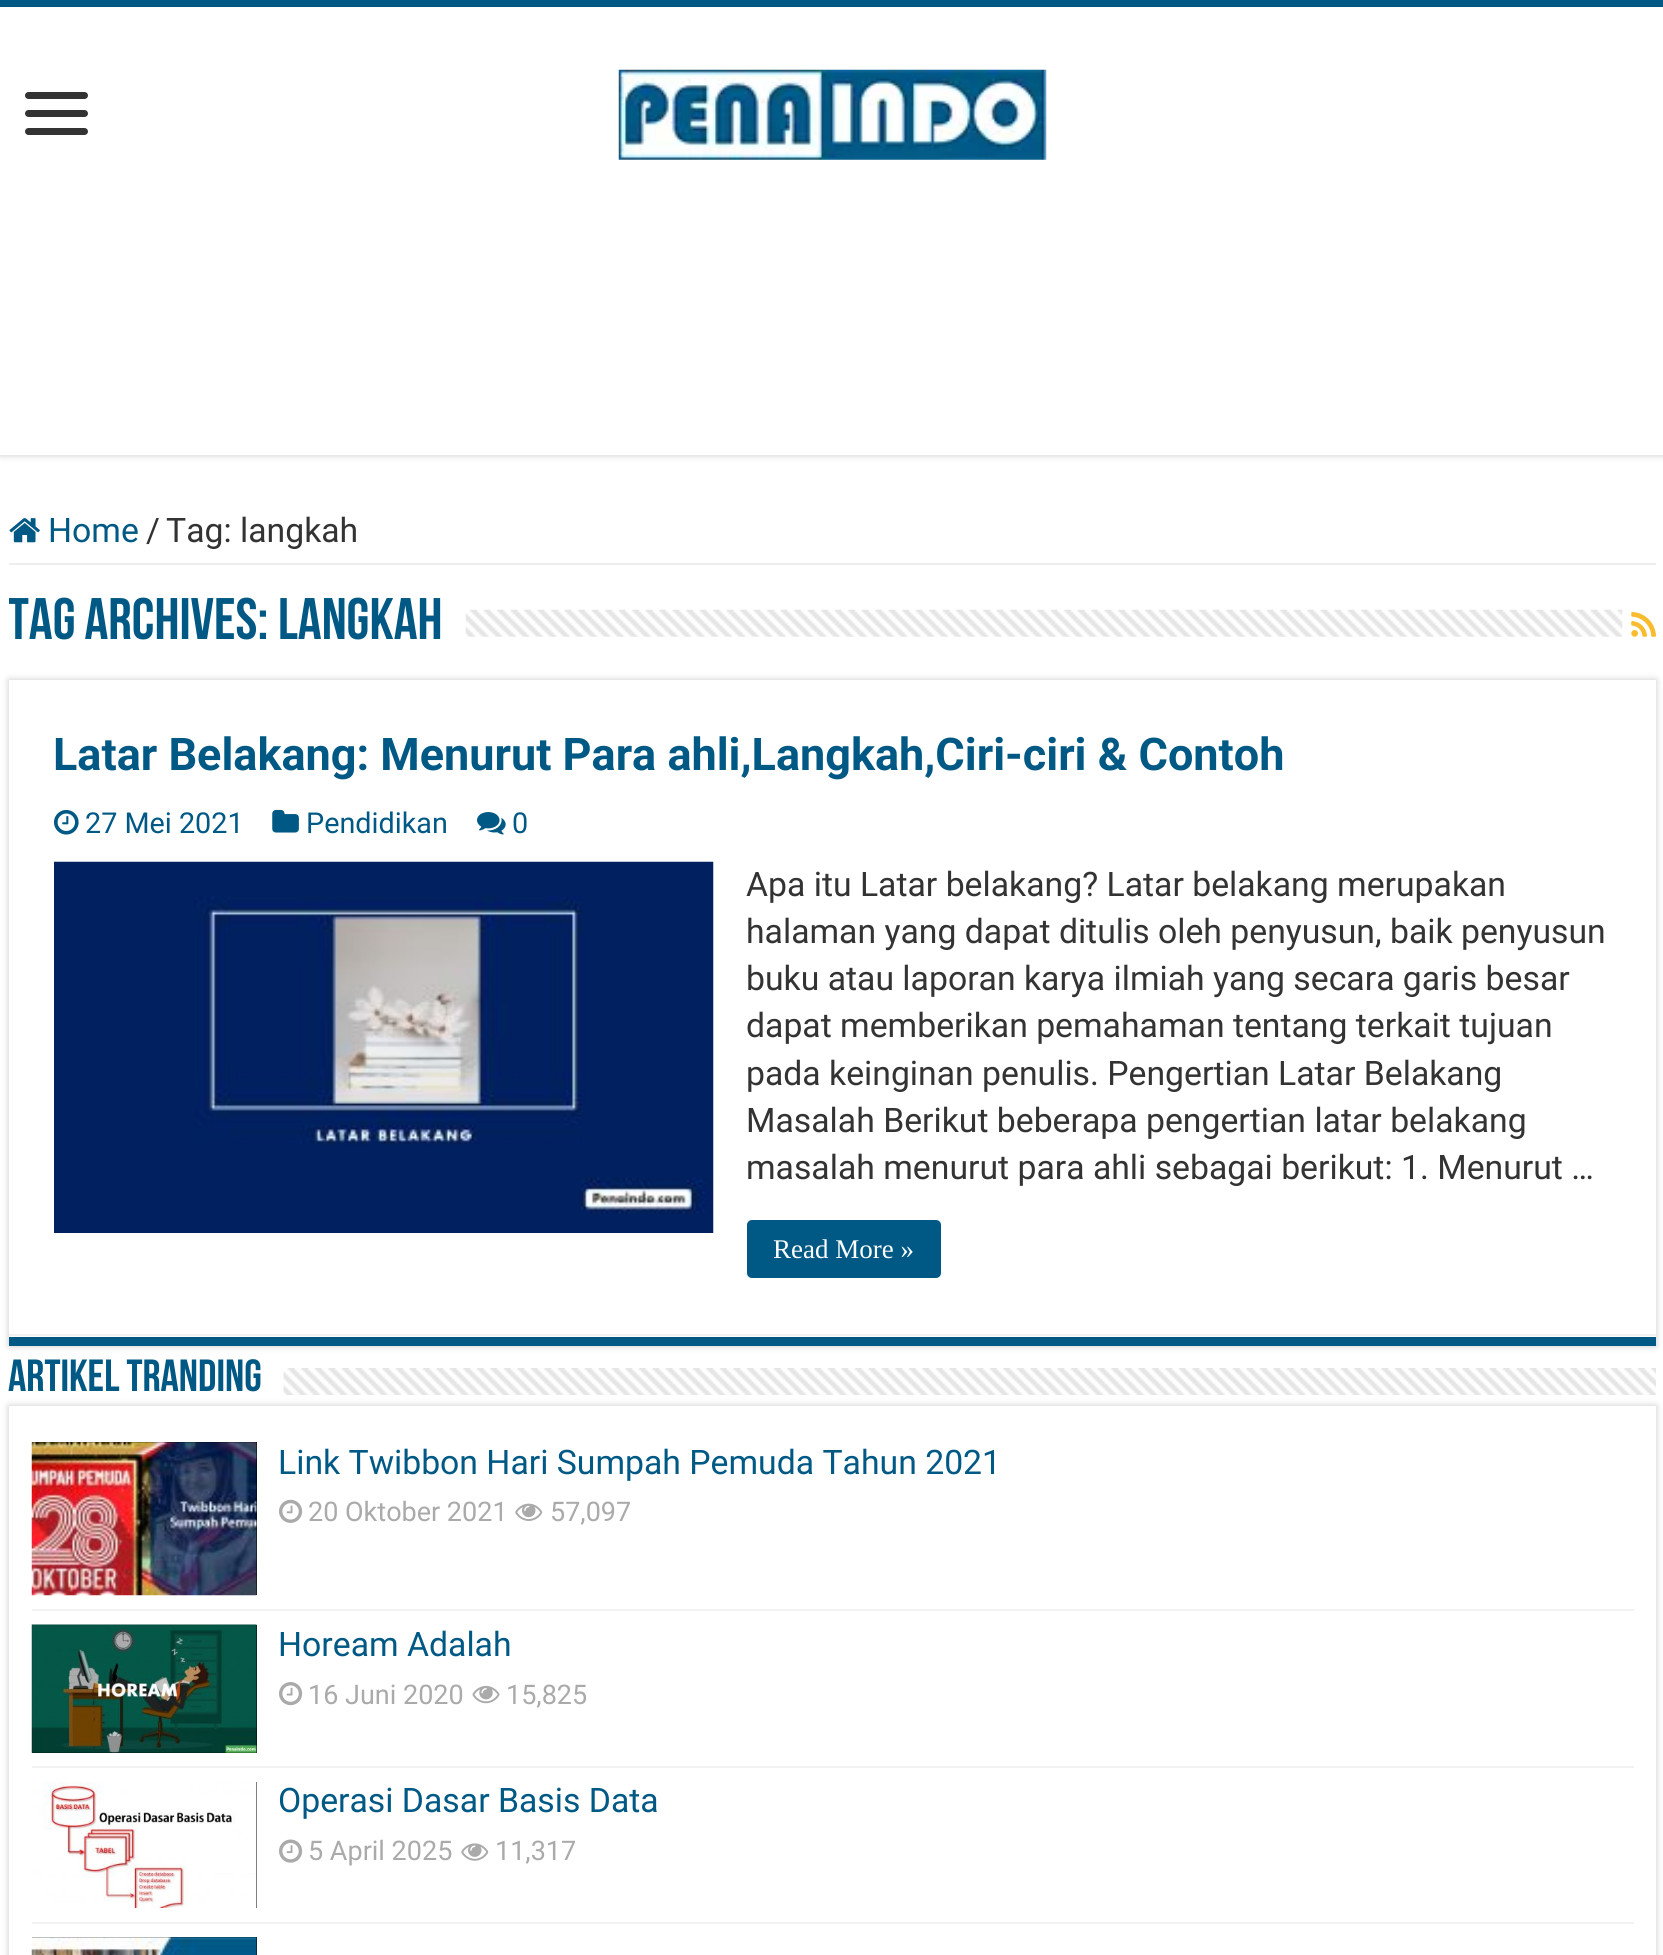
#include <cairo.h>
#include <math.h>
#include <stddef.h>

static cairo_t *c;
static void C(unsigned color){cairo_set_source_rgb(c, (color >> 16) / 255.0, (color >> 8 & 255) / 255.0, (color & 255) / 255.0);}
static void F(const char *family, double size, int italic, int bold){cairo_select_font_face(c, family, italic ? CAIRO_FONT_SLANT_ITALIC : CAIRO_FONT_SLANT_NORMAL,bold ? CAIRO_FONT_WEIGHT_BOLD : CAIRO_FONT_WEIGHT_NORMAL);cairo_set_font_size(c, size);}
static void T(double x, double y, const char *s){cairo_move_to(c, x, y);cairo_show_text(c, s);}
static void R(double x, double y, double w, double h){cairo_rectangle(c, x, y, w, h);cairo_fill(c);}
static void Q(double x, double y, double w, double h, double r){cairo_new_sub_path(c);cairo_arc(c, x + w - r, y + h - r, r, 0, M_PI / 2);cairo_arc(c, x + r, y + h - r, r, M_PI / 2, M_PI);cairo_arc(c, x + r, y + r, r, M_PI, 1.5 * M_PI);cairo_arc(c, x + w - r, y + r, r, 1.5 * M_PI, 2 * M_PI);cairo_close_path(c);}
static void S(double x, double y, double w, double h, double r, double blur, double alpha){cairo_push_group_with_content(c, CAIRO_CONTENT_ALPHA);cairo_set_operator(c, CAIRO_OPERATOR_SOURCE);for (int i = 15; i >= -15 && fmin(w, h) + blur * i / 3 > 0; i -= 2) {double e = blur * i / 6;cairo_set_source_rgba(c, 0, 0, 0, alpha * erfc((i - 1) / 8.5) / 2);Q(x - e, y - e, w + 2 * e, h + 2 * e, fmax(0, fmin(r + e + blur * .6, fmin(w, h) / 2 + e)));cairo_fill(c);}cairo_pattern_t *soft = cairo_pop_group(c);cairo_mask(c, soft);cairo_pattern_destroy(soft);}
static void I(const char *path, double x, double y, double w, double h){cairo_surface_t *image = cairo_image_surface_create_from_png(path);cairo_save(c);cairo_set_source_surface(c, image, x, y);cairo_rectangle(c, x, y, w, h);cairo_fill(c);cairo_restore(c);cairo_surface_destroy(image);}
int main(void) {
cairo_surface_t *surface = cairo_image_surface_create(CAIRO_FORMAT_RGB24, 1663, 1955);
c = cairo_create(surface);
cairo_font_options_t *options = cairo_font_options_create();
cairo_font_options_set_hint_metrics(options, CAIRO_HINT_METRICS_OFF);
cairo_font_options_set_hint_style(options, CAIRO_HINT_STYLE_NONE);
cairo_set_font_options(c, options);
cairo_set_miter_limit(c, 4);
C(0xffffff);
cairo_paint(c);
C(0xcacaca);
S(0,0,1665,455,0,3.5,1);
C(0xffffff);
R(0,7,1663,448);
C(0x005985);
R(0,0,1663,7);
C(0x333333);
Q(25,92,63,7,3.5);
cairo_fill(c);
Q(25,110,63,7,3.5);
cairo_fill(c);
Q(25,128,63,7,3.5);
cairo_fill(c);
I("1.png",618,69,429,91);
C(0xeeeeee);
R(9,563,1647,2);
I("2.png",9,518,31,25);
F("Roboto",33.75,0,0);
C(0x005985);
T(48,542,"Home");
C(0x333333);
T(146,542,"/");
T(166,542,"Tag: langkah");
cairo_save(c);
cairo_rectangle(c,9,587,1647,75);
cairo_clip(c);
F("Bebas Neue",58.5,0,1);
C(0x005985);
T(8,639,"Tag Archives:");
cairo_restore(c);
F("Bebas Neue",58.5,0,1);
C(0x005985);
T(278,639,"langkah");
I("3.png",465,609,1158,28);
I("4.png",1631,612,25,25);
C(0xcacaca);
S(9,680,1647,666,0,3.5,1);
C(0xffffff);
R(9,680,1647,657);
C(0x005985);
R(9,1337,1647,9);
C(0xf2f2f2);
R(9,1334,1647,2);
F("Roboto",45,0,1);
C(0x005985);
T(53,770,"Latar Belakang: Menurut Para ahli,Langkah,Ciri-ciri & Contoh");
I("5.png",54,810,25,25);
F("Roboto",28.75,0,0);
T(85,833,"27 Mei 2021");
I("6.png",272,809,27,24);
T(306,833,"Pendidikan");
I("7.png",477,812,29,23);
T(512,833,"0");
I("8.png",54,861,660,372);
F("Roboto",33.75,0,0);
C(0x333333);
T(746,896,"Apa itu Latar belakang? Latar belakang merupakan");
T(746,943,"halaman yang dapat ditulis oleh penyusun, baik penyusun");
T(746,990,"buku atau laporan karya ilmiah yang secara garis besar");
T(746,1037,"dapat memberikan pemahaman tentang terkait tujuan");
T(746,1085,"pada keinginan penulis. Pengertian Latar Belakang");
T(746,1132,"Masalah Berikut beberapa pengertian latar belakang");
T(746,1179,"masalah menurut para ahli sebagai berikut: 1. Menurut …");
C(0x005985);
Q(747,1220,194,58,5);
cairo_fill(c);
F("Liberation Serif",27,0,0);
C(0xffffff);
T(773,1258,"Read More »");
F("Bebas Neue",45,0,1);
C(0x005985);
T(8,1391,"Artikel Tranding");
C(0xcacaca);
S(9,1406,1647,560,0,3.5,1);
I("9.png",283,1368,1373,27);
C(0xffffff);
R(9,1406,1647,549);
C(0xf2f2f2);
R(32,1609,1602,2);
C(0x000000);
R(32,1442,225,153);
I("10.png",31,1442,226,154);
F("Roboto",33.75,0,0);
C(0x005985);
T(278,1474,"Link Twibbon Hari Sumpah Pemuda Tahun 2021");
I("11.png",279,1499,24,24);
F("Roboto",27,0,0);
C(0xaaaaaa);
T(308,1521,"20 Oktober 2021");
I("12.png",515,1503,28,18);
T(550,1521,"57,097");
C(0xf2f2f2);
R(32,1766,1602,2);
C(0x000000);
R(32,1625,225,128);
I("13.png",31,1624,226,129);
F("Roboto",33.75,0,0);
C(0x005985);
T(278,1656,"Hoream Adalah");
I("14.png",279,1682,24,24);
F("Roboto",27,0,0);
C(0xaaaaaa);
T(308,1704,"16 Juni 2020");
I("15.png",472,1685,28,19);
T(506,1704,"15,825");
C(0xf2f2f2);
R(32,1922,1602,2);
C(0x000000);
R(256,1782,1,126);
I("16.png",32,1782,225,126);
F("Roboto",33.75,0,0);
C(0x005985);
T(278,1812,"Operasi Dasar Basis Data");
I("17.png",279,1839,24,24);
F("Roboto",27,0,0);
C(0xaaaaaa);
T(308,1860,"5 April 2025");
I("18.png",461,1843,28,18);
T(495,1860,"11,317");
C(0x000000);
R(32,1937,225,18);
I("19.png",31,1937,226,18);
cairo_surface_write_to_png(surface, "o.png");
cairo_font_options_destroy(options);
cairo_destroy(c);
cairo_surface_destroy(surface);
return 0;
}
